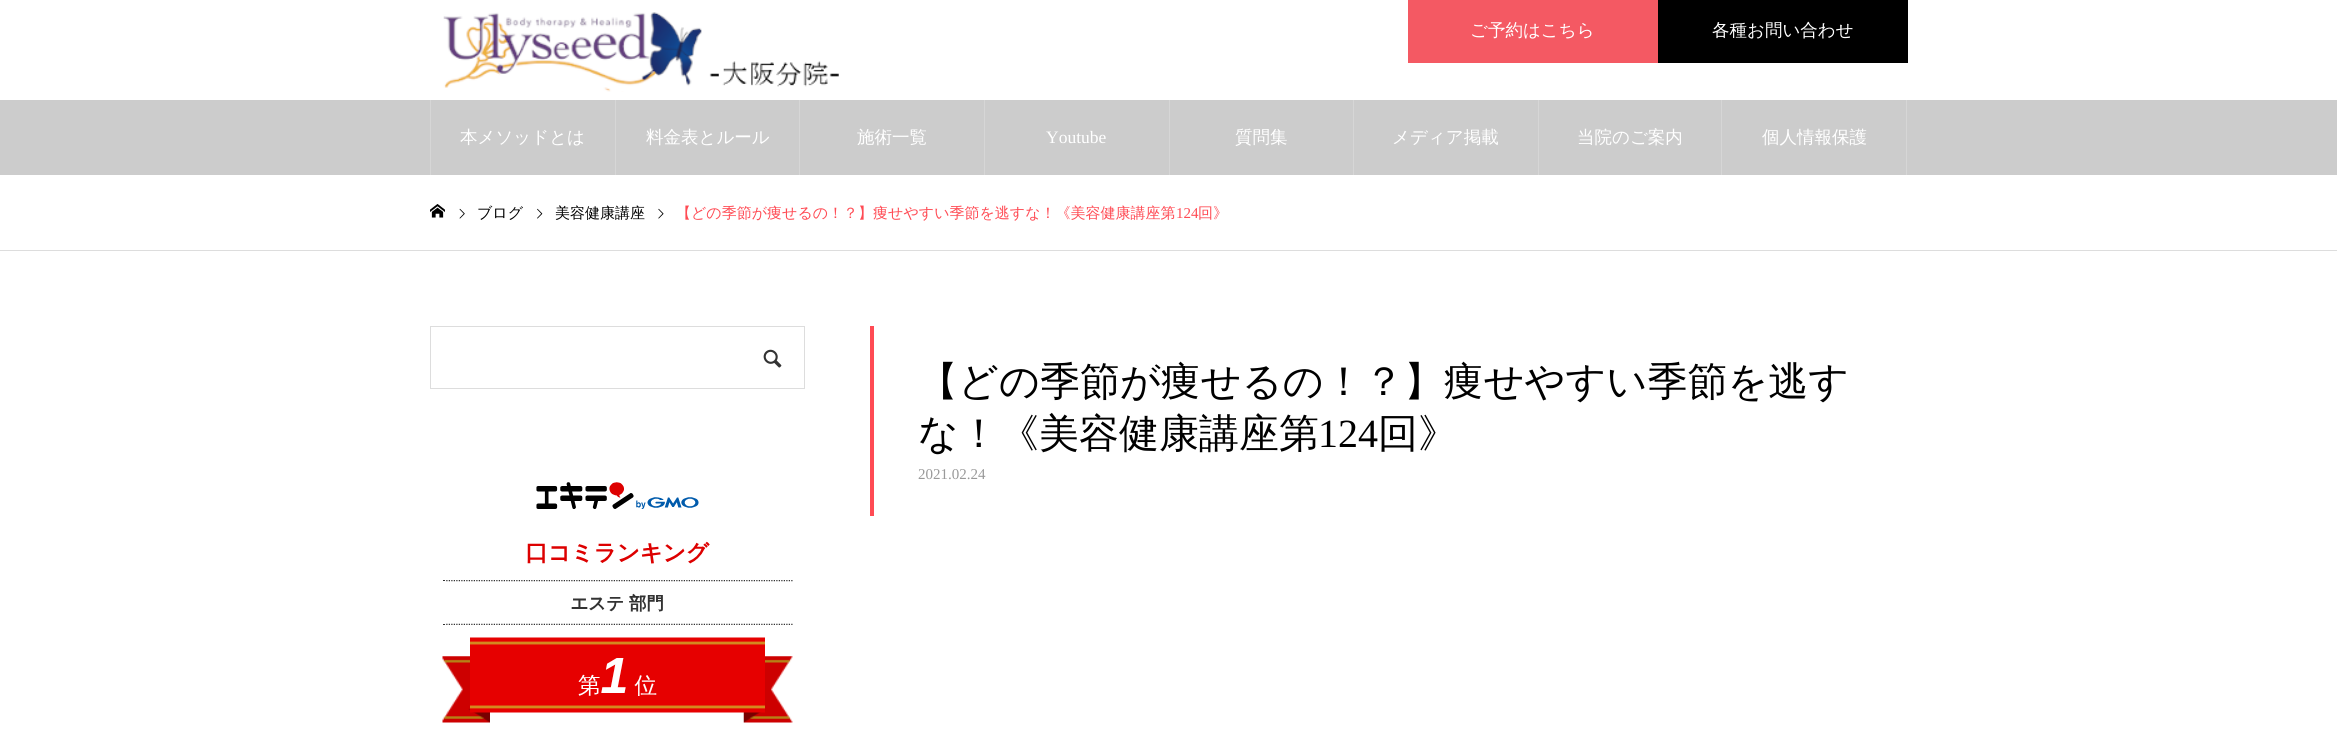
#include <cairo.h>
#include <math.h>
#include <stddef.h>

static cairo_t *c;
static void C(unsigned color){cairo_set_source_rgb(c, (color >> 16) / 255.0, (color >> 8 & 255) / 255.0, (color & 255) / 255.0);}
static void F(const char *family, double size, int italic, int bold){cairo_select_font_face(c, family, italic ? CAIRO_FONT_SLANT_ITALIC : CAIRO_FONT_SLANT_NORMAL,bold ? CAIRO_FONT_WEIGHT_BOLD : CAIRO_FONT_WEIGHT_NORMAL);cairo_set_font_size(c, size);}
static void T(double x, double y, const char *s){cairo_move_to(c, x, y);cairo_show_text(c, s);}
static void R(double x, double y, double w, double h){cairo_rectangle(c, x, y, w, h);cairo_fill(c);}
static void I(const char *path, double x, double y, double w, double h){cairo_surface_t *image = cairo_image_surface_create_from_png(path);cairo_save(c);cairo_set_source_surface(c, image, x, y);cairo_rectangle(c, x, y, w, h);cairo_fill(c);cairo_restore(c);cairo_surface_destroy(image);}
int main(void) {
cairo_surface_t *surface = cairo_image_surface_create(CAIRO_FORMAT_RGB24, 2337, 745);
c = cairo_create(surface);
cairo_font_options_t *options = cairo_font_options_create();
cairo_font_options_set_hint_metrics(options, CAIRO_HINT_METRICS_OFF);
cairo_font_options_set_hint_style(options, CAIRO_HINT_STYLE_NONE);
cairo_set_font_options(c, options);
cairo_set_miter_limit(c, 4);
C(0xffffff);
cairo_paint(c);
I("1.png",443,12,396,80);
C(0xf45963);
R(1408,0,250,63);
F("WenQuanYi Zen Hei Medium",17.5,0,0);
C(0xffffff);
T(1470,36,"ご予約はこちら");
C(0x000000);
R(1658,0,250,63);
C(0xffffff);
T(1712,36,"各種お問い合わせ");
C(0xcccccc);
R(0,100,2337,75);
C(0xd6d6d6);
R(430,100,1,75);
R(615,100,1,75);
C(0xffffff);
T(460,143,"本メソッドとは");
C(0xd6d6d6);
R(799,100,1,75);
C(0xffffff);
T(646,143,"料金表とルール");
C(0xd6d6d6);
R(984,100,1,75);
C(0xffffff);
T(857,143,"施術一覧");
C(0xd6d6d6);
R(1169,100,1,75);
F("Liberation Serif",17.5,0,0);
C(0xffffff);
T(1046,143,"Youtube");
C(0xd6d6d6);
R(1353,100,1,75);
F("WenQuanYi Zen Hei Medium",17.5,0,0);
C(0xffffff);
T(1235,143,"質問集");
C(0xd6d6d6);
R(1538,100,1,75);
C(0xffffff);
T(1392,143,"メディア掲載");
C(0xd6d6d6);
R(1721,100,1,75);
C(0xffffff);
T(1577,143,"当院のご案内");
C(0xd6d6d6);
R(1906,100,1,75);
C(0xffffff);
T(1762,143,"個人情報保護");
C(0xdddddd);
R(0,250,2337,1);
I("2.png",430,204,15,14);
I("3.png",459,208,6,11);
F("WenQuanYi Zen Hei Medium",15,0,0);
C(0x000000);
T(477,218,"ブログ");
I("4.png",537,208,6,11);
T(555,218,"美容健康講座");
I("5.png",658,208,6,11);
C(0xff4b54);
T(676,218,"【どの季節が痩せるの！？】痩せやすい季節を逃すな！《美容健康講座第");
F("Liberation Serif",15,0,0);
T(1176,218,"124");
F("WenQuanYi Zen Hei Medium",15,0,0);
T(1198,218,"回》");
cairo_rectangle(c,430.5,326.5,374,62);
C(0xdddddd);
cairo_set_line_width(c,1);
cairo_stroke(c);
I("6.png",763,349,19,19);
I("7.png",442,482,351,241);
C(0xff4b54);
R(870,326,4,190);
F("WenQuanYi Zen Hei Medium",40,0,0);
C(0x000000);
T(918,395,"【どの季節が痩せるの！？】痩せやすい季節を逃す");
T(918,447,"な！《美容健康講座第");
F("Liberation Serif",40,0,0);
T(1318,447,"124");
F("WenQuanYi Zen Hei Medium",40,0,0);
T(1378,447,"回》");
F("Liberation Serif",15,0,0);
C(0x999999);
T(918,479,"2021.02.24");
cairo_surface_write_to_png(surface, "o.png");
cairo_font_options_destroy(options);
cairo_destroy(c);
cairo_surface_destroy(surface);
return 0;
}
